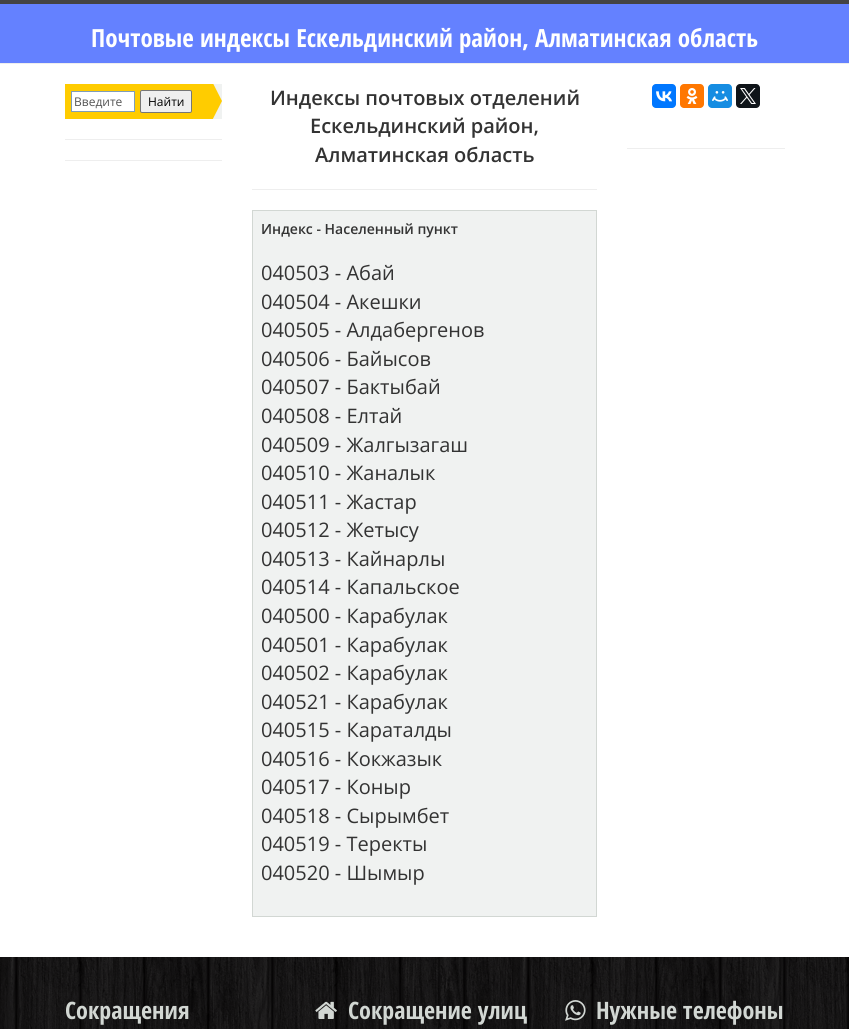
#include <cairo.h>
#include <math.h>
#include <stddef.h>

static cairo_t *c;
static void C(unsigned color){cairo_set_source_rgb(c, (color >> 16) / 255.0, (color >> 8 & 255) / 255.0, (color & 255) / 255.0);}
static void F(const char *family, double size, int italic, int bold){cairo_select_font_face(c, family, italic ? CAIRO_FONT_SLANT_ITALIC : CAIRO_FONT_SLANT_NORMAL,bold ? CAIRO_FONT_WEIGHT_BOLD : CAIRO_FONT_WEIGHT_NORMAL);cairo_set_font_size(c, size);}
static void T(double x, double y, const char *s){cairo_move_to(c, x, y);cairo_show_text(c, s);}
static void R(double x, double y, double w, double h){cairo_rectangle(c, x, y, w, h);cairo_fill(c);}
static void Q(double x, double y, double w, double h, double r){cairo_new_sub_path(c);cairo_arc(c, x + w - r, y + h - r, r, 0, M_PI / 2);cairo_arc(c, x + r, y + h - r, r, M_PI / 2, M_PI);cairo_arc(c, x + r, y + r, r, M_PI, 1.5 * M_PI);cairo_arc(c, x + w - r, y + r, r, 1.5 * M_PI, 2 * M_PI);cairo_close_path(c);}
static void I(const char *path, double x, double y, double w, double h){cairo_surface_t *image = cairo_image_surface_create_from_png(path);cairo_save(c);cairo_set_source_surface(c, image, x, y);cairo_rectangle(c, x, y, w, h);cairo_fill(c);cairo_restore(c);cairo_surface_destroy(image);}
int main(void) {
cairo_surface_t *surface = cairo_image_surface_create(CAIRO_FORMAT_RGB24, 849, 1029);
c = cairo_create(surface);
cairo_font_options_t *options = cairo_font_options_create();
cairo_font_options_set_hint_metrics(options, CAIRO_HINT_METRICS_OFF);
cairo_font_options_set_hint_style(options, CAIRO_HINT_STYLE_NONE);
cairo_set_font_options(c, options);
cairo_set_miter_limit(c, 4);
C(0xffffff);
cairo_paint(c);
C(0x444444);
R(0,0,849,4);
C(0xeeeeee);
R(0,63,849,1);
C(0x6481ff);
R(0,4,849,59);
F("Open Sans Condensed",25,0,1);
C(0xffffff);
T(91,47,"Почтовые индексы Ескельдинский район, Алматинская область");
C(0xffcc00);
R(65,84,127,35);
C(0xffffff);
cairo_rectangle(c,71.5,91.5,63,20);
cairo_fill_preserve(c);
C(0x7f9db9);
cairo_set_line_width(c,1);
cairo_stroke(c);
F("Open Sans",12,0,0);
C(0x555555);
T(74,106,"Введите");
C(0xefefef);
Q(140.5,90.5,51,22,1.5);
cairo_fill_preserve(c);
C(0x767676);
cairo_stroke(c);
C(0x000000);
T(148,106,"Найти");
C(0xf0f2f1);
R(212,84,10,35);
cairo_save(c);
cairo_rectangle(c,192,84,30,35);
cairo_clip(c);
C(0xffcc00);
cairo_new_path(c);
cairo_move_to(c,192,160);
cairo_line_to(c,192,42);
cairo_line_to(c,222,101);
cairo_close_path(c);
cairo_fill(c);
cairo_restore(c);
C(0xeeeeee);
R(65,139,157,1);
R(65,160,157,1);
F("Open Sans SemiBold",20,0,0);
C(0x333333);
T(270,105,"Индексы почтовых отделений");
T(310,133,"Ескельдинский район,");
T(315,162,"Алматинская область");
C(0xeeeeee);
R(252,189,345,1);
C(0xf0f2f1);
R(253,211,343,705);
C(0xd2d7d3);
R(252,210,345,1);
R(596,210,1,707);
R(252,916,345,1);
R(252,210,1,707);
F("Open Sans SemiBold",14,0,0);
C(0x333333);
T(261,234,"Индекс - Населенный пункт");
F("Open Sans",20,0,0);
T(261,280,"040503 - Абай");
T(261,309,"040504 - Акешки");
T(261,337,"040505 - Алдабергенов");
T(261,366,"040506 - Байысов");
T(261,394,"040507 - Бактыбай");
T(261,423,"040508 - Елтай");
T(261,452,"040509 - Жалгызагаш");
T(261,480,"040510 - Жаналык");
T(261,509,"040511 - Жастар");
T(261,537,"040512 - Жетысу");
T(261,566,"040513 - Кайнарлы");
T(261,594,"040514 - Капальское");
T(261,623,"040500 - Карабулак");
T(261,652,"040501 - Карабулак");
T(261,680,"040502 - Карабулак");
T(261,709,"040521 - Карабулак");
T(261,737,"040515 - Караталды");
T(261,766,"040516 - Кокжазык");
T(261,794,"040517 - Коныр");
T(261,823,"040518 - Сырымбет");
T(261,851,"040519 - Теректы");
T(261,880,"040520 - Шымыр");
C(0x0077ff);
Q(652,84,24,24,4);
cairo_fill(c);
I("1.png",656,91,16,11);
C(0xff7700);
Q(680,84,24,24,4);
cairo_fill(c);
I("2.png",686,88,12,16);
C(0x168de2);
Q(708,84,24,24,4);
cairo_fill(c);
I("3.png",712,91,16,11);
C(0x0f1419);
Q(736,84,24,24,4);
cairo_fill(c);
I("4.png",740,88,16,16);
C(0xeeeeee);
R(627,148,158,1);
I("5.png",0,957,849,72);
F("Open Sans Condensed",24,0,1);
C(0xd2d7d3);
T(65,1019,"Сокращения");
I("6.png",315,1001,22,18);
T(348,1019,"Сокращение улиц");
I("7.png",565,1000,21,21);
T(596,1019,"Нужные телефоны");
cairo_surface_write_to_png(surface, "o.png");
cairo_font_options_destroy(options);
cairo_destroy(c);
cairo_surface_destroy(surface);
return 0;
}
